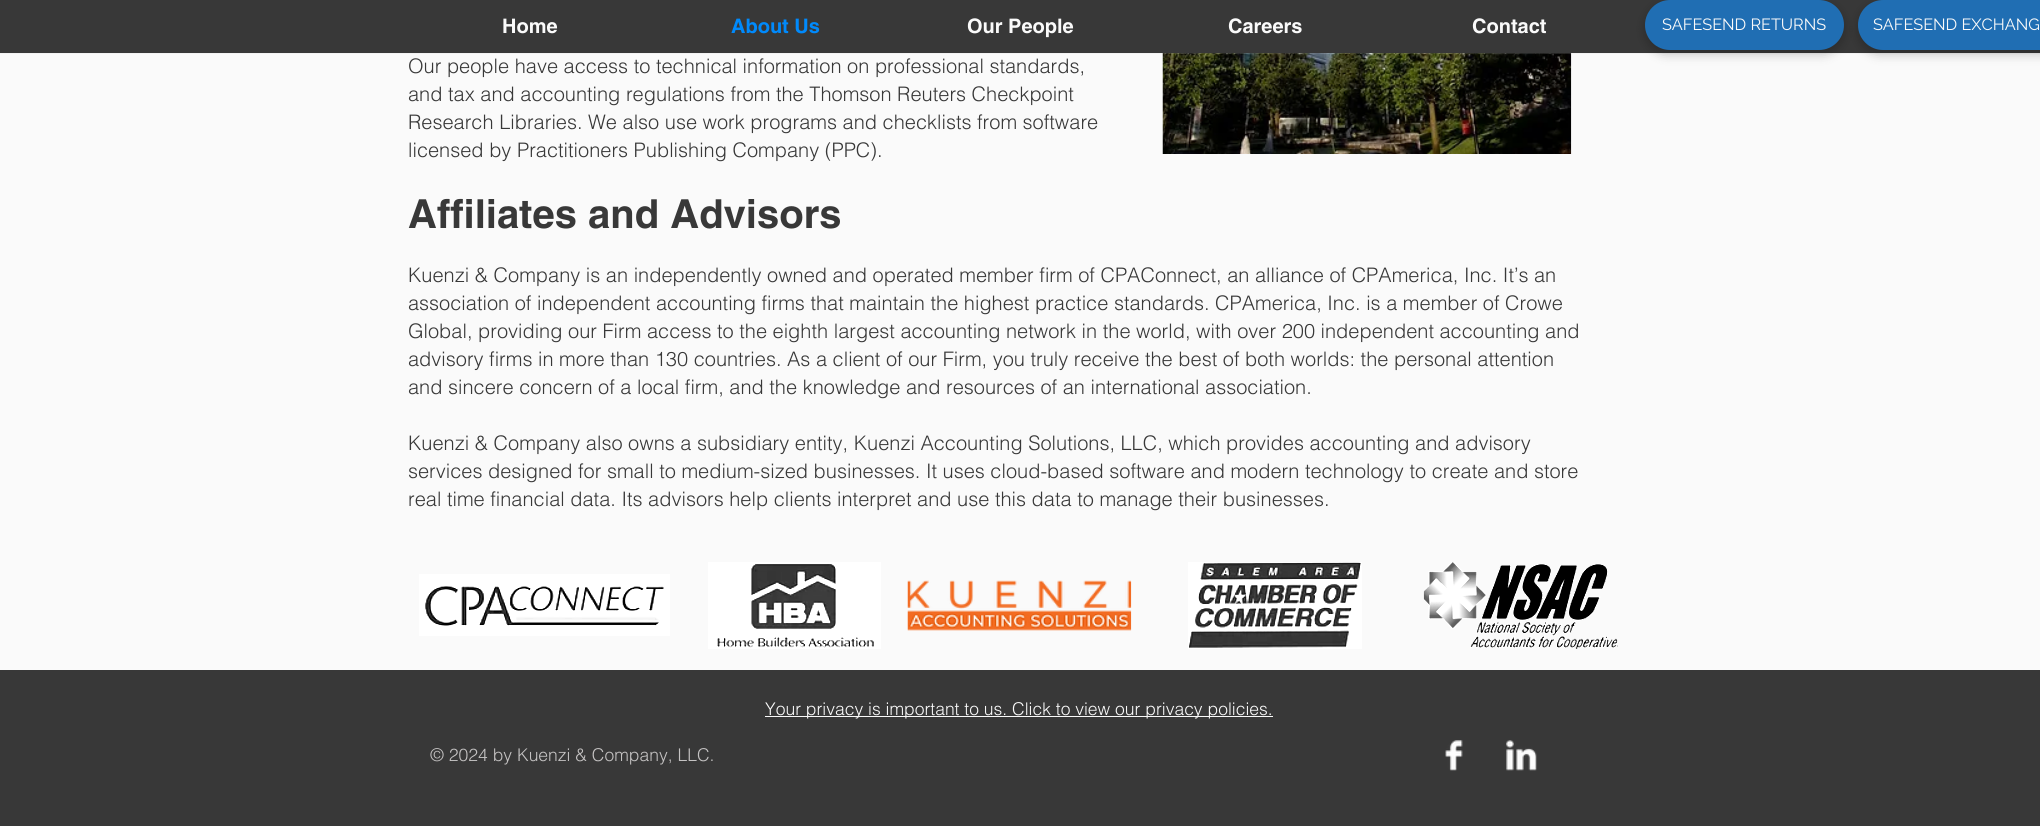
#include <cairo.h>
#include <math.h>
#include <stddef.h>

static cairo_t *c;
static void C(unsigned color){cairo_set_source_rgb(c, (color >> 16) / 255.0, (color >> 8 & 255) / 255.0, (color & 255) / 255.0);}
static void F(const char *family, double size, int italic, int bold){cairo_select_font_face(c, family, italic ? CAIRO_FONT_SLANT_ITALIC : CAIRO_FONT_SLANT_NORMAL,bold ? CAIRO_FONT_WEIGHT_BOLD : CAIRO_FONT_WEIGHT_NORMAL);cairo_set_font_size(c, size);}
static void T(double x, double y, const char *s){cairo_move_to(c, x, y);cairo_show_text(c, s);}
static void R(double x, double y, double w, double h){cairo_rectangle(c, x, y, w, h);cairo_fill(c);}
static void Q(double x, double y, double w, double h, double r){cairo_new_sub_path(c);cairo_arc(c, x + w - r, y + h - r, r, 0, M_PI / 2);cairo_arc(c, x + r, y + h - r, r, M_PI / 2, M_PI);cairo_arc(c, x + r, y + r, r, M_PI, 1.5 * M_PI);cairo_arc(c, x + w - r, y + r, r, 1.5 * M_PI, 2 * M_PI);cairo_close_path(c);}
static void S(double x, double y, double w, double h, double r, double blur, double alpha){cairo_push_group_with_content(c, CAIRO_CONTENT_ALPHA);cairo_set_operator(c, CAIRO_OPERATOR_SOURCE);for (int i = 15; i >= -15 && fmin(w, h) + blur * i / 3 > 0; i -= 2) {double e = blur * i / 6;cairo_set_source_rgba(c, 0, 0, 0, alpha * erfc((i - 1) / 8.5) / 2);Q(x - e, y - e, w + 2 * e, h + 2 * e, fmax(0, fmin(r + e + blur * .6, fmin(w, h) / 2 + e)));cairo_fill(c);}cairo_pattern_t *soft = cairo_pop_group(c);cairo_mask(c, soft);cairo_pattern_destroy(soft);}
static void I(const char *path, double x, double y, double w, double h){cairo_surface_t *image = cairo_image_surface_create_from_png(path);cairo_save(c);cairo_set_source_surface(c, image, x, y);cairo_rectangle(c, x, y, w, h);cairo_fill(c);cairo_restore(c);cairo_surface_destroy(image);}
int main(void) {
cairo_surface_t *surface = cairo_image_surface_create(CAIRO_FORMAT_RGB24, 2040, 826);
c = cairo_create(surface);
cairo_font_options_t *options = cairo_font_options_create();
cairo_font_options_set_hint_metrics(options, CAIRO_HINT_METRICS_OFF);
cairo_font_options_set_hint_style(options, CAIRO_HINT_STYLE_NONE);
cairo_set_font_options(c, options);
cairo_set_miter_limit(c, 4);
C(0xfafafa);
cairo_paint(c);
C(0x383838);
R(0,0,2040,53);
F("helvetica",20,0,1);
C(0xfafafa);
T(502,33,"Home");
C(0x008afc);
T(731,33,"About Us");
C(0xfafafa);
T(967,33,"Our People");
T(1228,33,"Careers");
T(1472,33,"Contact");
I("1.png",1162,53,410,101);
cairo_set_source_rgba(c,0.773,0.765,0.765,0.16);
R(0,53,2040,1);
C(0x000000);
S(1645,4,199,50,25,5.5,.23);
C(0x206eb3);
Q(1645,0,199,50,25);
cairo_fill(c);
F("Raleway",16.25,0,0);
C(0xfafafa);
T(1662,30,"SAFESEND RETURNS");
C(0x000000);
S(1858,4,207,50,25,5.5,.23);
C(0x206eb3);
Q(1858,0,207,50,25);
cairo_fill(c);
C(0xfafafa);
T(1873,30,"SAFESEND EXCHANG");
F("helvetica Light",20,0,0);
C(0x383838);
T(408,73,"Our people have access to technical information on professional standards,");
T(408,101,"and tax and accounting regulations from the Thomson Reuters Checkpoint");
T(408,129,"Research Libraries. We also use work programs and checklists from software");
T(408,157,"licensed by Practitioners Publishing Company (PPC).");
F("helvetica",40,0,1);
T(408,228,"Affiliates and Advisors");
F("helvetica Light",20,0,0);
T(408,282,"Kuenzi & Company is an independently owned and operated member firm of CPAConnect, an alliance of CPAmerica, Inc. It’s an");
T(408,310,"association of independent accounting firms that maintain the highest practice standards. CPAmerica, Inc. is a member of Crowe");
T(408,338,"Global, providing our Firm access to the eighth largest accounting network in the world, with over 200 independent accounting and");
T(408,366,"advisory firms in more than 130 countries. As a client of our Firm, you truly receive the best of both worlds: the personal attention");
T(408,394,"and sincere concern of a local firm, and the knowledge and resources of an international association.");
T(408,450,"Kuenzi & Company also owns a subsidiary entity, Kuenzi Accounting Solutions, LLC, which provides accounting and advisory");
T(408,478,"services designed for small to medium-sized businesses. It uses cloud-based software and modern technology to create and store");
T(408,506,"real time financial data. Its advisors help clients interpret and use this data to manage their businesses.");
I("2.png",419,574,251,62);
I("3.png",708,562,173,87);
I("4.png",907,580,225,51);
I("5.png",1188,562,174,87);
I("6.png",1423,562,195,87);
R(0,670,2040,156);
C(0xfafafa);
R(765,716,508,1);
F("helvetica Light",17.5,0,0);
T(765,715,"Your privacy is important to us. Click to view our privacy policies.");
C(0xc5c3c3);
T(430,761,"© 2024 by Kuenzi & Company, LLC.");
I("7.png",1445,740,18,31);
I("8.png",1506,740,31,31);
cairo_surface_write_to_png(surface, "o.png");
cairo_font_options_destroy(options);
cairo_destroy(c);
cairo_surface_destroy(surface);
return 0;
}
